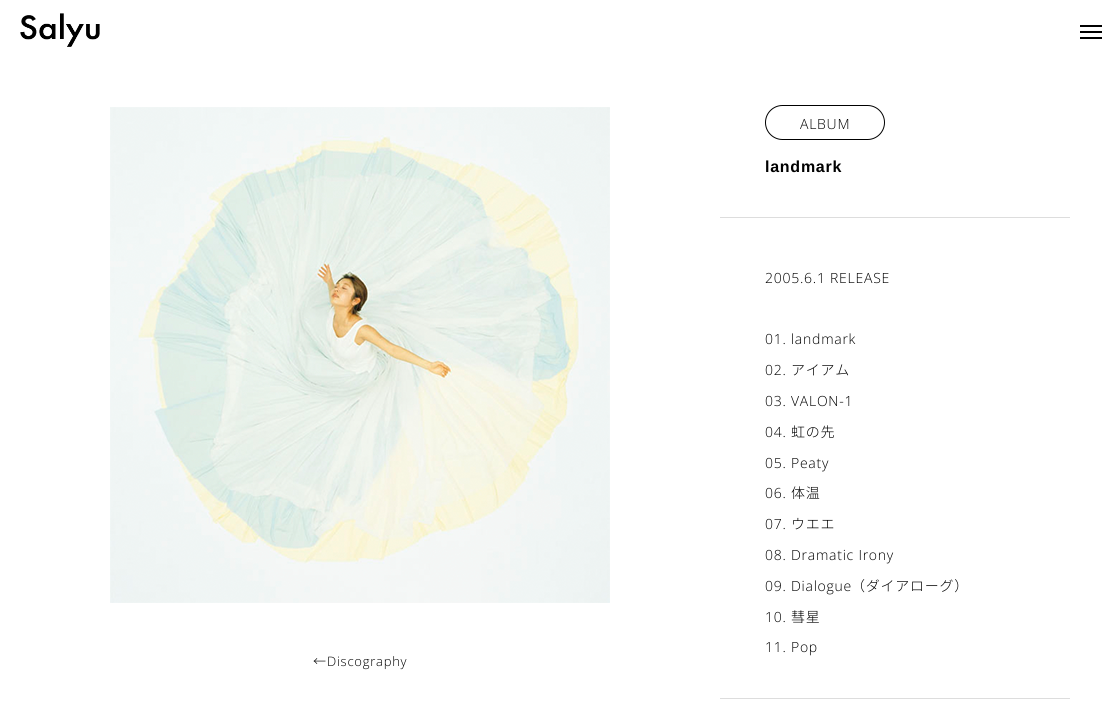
#include <cairo.h>
#include <math.h>
#include <stddef.h>

static cairo_t *c;
static void C(unsigned color){cairo_set_source_rgb(c, (color >> 16) / 255.0, (color >> 8 & 255) / 255.0, (color & 255) / 255.0);}
static void F(const char *family, double size, int italic, int bold){cairo_select_font_face(c, family, italic ? CAIRO_FONT_SLANT_ITALIC : CAIRO_FONT_SLANT_NORMAL,bold ? CAIRO_FONT_WEIGHT_BOLD : CAIRO_FONT_WEIGHT_NORMAL);cairo_set_font_size(c, size);}
static void L(double x, double y, const char *s, double letter, double word){cairo_move_to(c, x, y);while (*s) {char ch[5] = {0};int n = 0;do ch[n++] = *s++; while ((*s & 0xC0) == 0x80);cairo_show_text(c, ch);cairo_rel_move_to(c, letter + word * (*ch == ' '), 0);}}
static void R(double x, double y, double w, double h){cairo_rectangle(c, x, y, w, h);cairo_fill(c);}
static void Q(double x, double y, double w, double h, double r){cairo_new_sub_path(c);cairo_arc(c, x + w - r, y + h - r, r, 0, M_PI / 2);cairo_arc(c, x + r, y + h - r, r, M_PI / 2, M_PI);cairo_arc(c, x + r, y + r, r, M_PI, 1.5 * M_PI);cairo_arc(c, x + w - r, y + r, r, 1.5 * M_PI, 2 * M_PI);cairo_close_path(c);}
static void I(const char *path, double x, double y, double w, double h){cairo_surface_t *image = cairo_image_surface_create_from_png(path);cairo_save(c);cairo_set_source_surface(c, image, x, y);cairo_rectangle(c, x, y, w, h);cairo_fill(c);cairo_restore(c);cairo_surface_destroy(image);}
int main(void) {
cairo_surface_t *surface = cairo_image_surface_create(CAIRO_FORMAT_RGB24, 1120, 713);
c = cairo_create(surface);
cairo_font_options_t *options = cairo_font_options_create();
cairo_font_options_set_hint_metrics(options, CAIRO_HINT_METRICS_OFF);
cairo_font_options_set_hint_style(options, CAIRO_HINT_STYLE_NONE);
cairo_set_font_options(c, options);
cairo_set_miter_limit(c, 4);
C(0xffffff);
cairo_paint(c);
I("1.png",20,13,80,34);
C(0x000000);
R(1080,25,22,2);
R(1080,31,22,2);
R(1080,37,22,2);
C(0xdddddd);
R(720,217,350,1);
Q(765.5,105.5,119,34,17);
C(0x000000);
cairo_set_line_width(c,1);
cairo_stroke(c);
F("Open Sans Light",14,0,0);
L(800,129,"ALBUM",.75,0);
F("Liberation Sans",16,0,1);
L(765,172,"landmark",.75,0);
C(0xdddddd);
R(720,698,350,1);
F("Open Sans Light",14,0,0);
C(0x000000);
L(765,283,"2005.6.1 RELEASE",.75,0);
L(765,344,"01. landmark",.75,0);
L(765,375,"02.",.75,0);
F("Noto Sans JP Thin",14,0,0);
L(791,375,"アイアム",.75,0);
F("Open Sans Light",14,0,0);
L(765,406,"03. VALON-1",.75,0);
L(765,437,"04.",.75,0);
F("Noto Sans JP Thin",14,0,0);
L(791,437,"虹の先",.75,0);
F("Open Sans Light",14,0,0);
L(765,468,"05. Peaty",.75,0);
L(765,498,"06.",.75,0);
F("Noto Sans JP Thin",14,0,0);
L(791,498,"体温",.75,0);
F("Open Sans Light",14,0,0);
L(765,529,"07.",.75,0);
F("Noto Sans JP Thin",14,0,0);
L(791,529,"ウエエ",.75,0);
F("Open Sans Light",14,0,0);
L(765,560,"08. Dramatic Irony",.75,0);
L(765,591,"09. Dialogue",.75,0);
F("Noto Sans JP Thin",14,0,0);
L(851,591,"（ダイアローグ）",.75,0);
F("Open Sans Light",14,0,0);
L(765,622,"10.",.75,0);
F("Noto Sans JP Thin",14,0,0);
L(791,622,"彗星",.75,0);
F("Open Sans Light",14,0,0);
L(765,652,"11. Pop",.75,0);
I("2.png",110,107,500,496);
F("Noto Sans JP Thin",13,0,0);
L(313,666,"←",.75,0);
F("Open Sans Light",13,0,0);
L(327,666,"Discography",.75,0);
cairo_surface_write_to_png(surface, "o.png");
cairo_font_options_destroy(options);
cairo_destroy(c);
cairo_surface_destroy(surface);
return 0;
}
